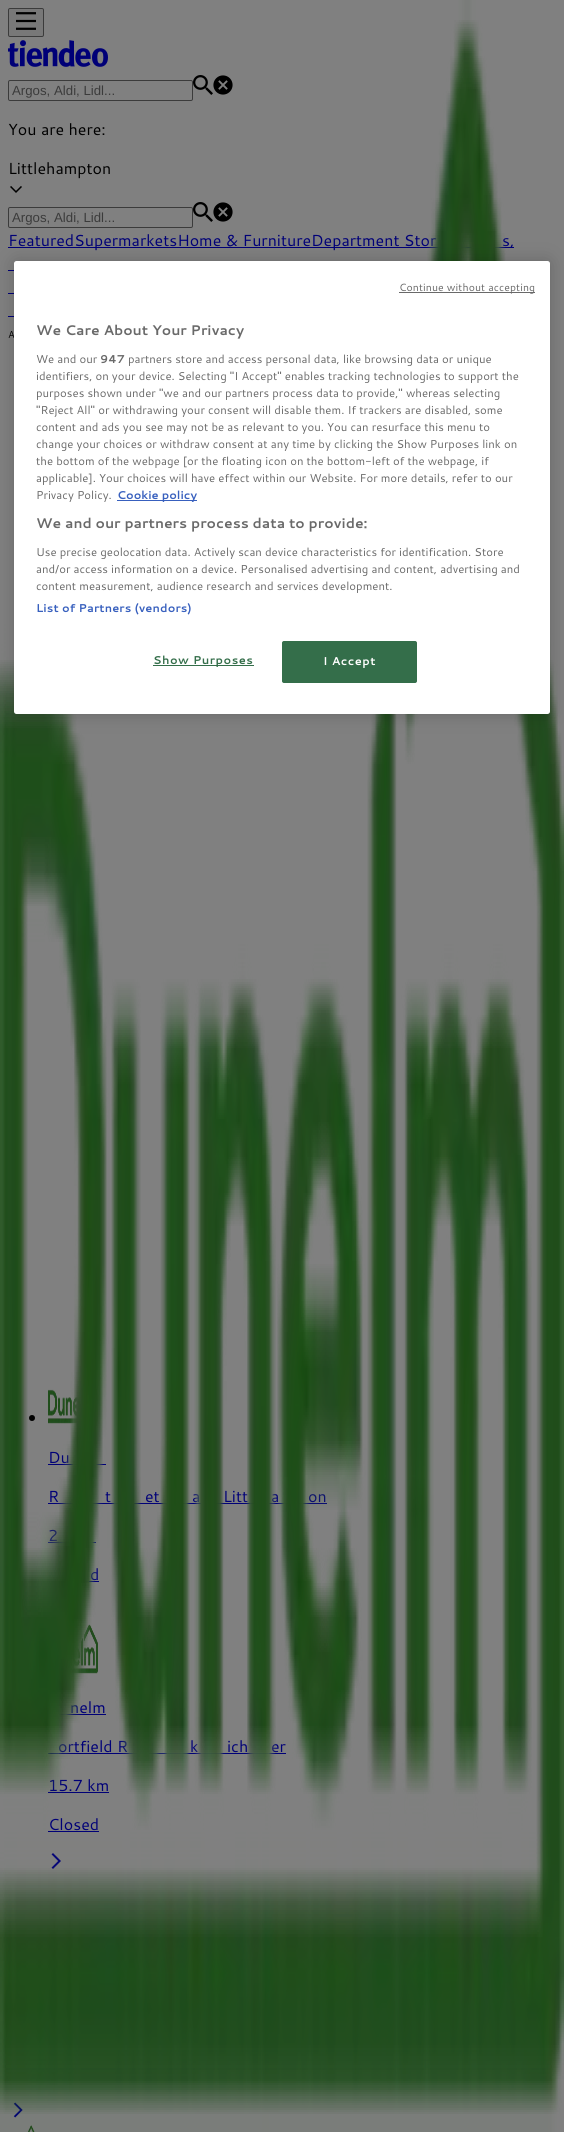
#include <cairo.h>
#include <math.h>
#include <stddef.h>

static cairo_t *c;
static void C(unsigned color){cairo_set_source_rgb(c, (color >> 16) / 255.0, (color >> 8 & 255) / 255.0, (color & 255) / 255.0);}
static void F(const char *family, double size, int italic, int bold){cairo_select_font_face(c, family, italic ? CAIRO_FONT_SLANT_ITALIC : CAIRO_FONT_SLANT_NORMAL,bold ? CAIRO_FONT_WEIGHT_BOLD : CAIRO_FONT_WEIGHT_NORMAL);cairo_set_font_size(c, size);}
static void T(double x, double y, const char *s){cairo_move_to(c, x, y);cairo_show_text(c, s);}
static void L(double x, double y, const char *s, double letter, double word){cairo_move_to(c, x, y);while (*s) {char ch[5] = {0};int n = 0;do ch[n++] = *s++; while ((*s & 0xC0) == 0x80);cairo_show_text(c, ch);cairo_rel_move_to(c, letter + word * (*ch == ' '), 0);}}
static void R(double x, double y, double w, double h){cairo_rectangle(c, x, y, w, h);cairo_fill(c);}
static void Q(double x, double y, double w, double h, double r){cairo_new_sub_path(c);cairo_arc(c, x + w - r, y + h - r, r, 0, M_PI / 2);cairo_arc(c, x + r, y + h - r, r, M_PI / 2, M_PI);cairo_arc(c, x + r, y + r, r, M_PI, 1.5 * M_PI);cairo_arc(c, x + w - r, y + r, r, 1.5 * M_PI, 2 * M_PI);cairo_close_path(c);}
static void S(double x, double y, double w, double h, double r, double blur, double alpha){cairo_push_group_with_content(c, CAIRO_CONTENT_ALPHA);cairo_set_operator(c, CAIRO_OPERATOR_SOURCE);for (int i = 15; i >= -15 && fmin(w, h) + blur * i / 3 > 0; i -= 2) {double e = blur * i / 6;cairo_set_source_rgba(c, 0, 0, 0, alpha * erfc((i - 1) / 8.5) / 2);Q(x - e, y - e, w + 2 * e, h + 2 * e, fmax(0, fmin(r + e + blur * .6, fmin(w, h) / 2 + e)));cairo_fill(c);}cairo_pattern_t *soft = cairo_pop_group(c);cairo_mask(c, soft);cairo_pattern_destroy(soft);}
static void I(const char *path, double x, double y, double w, double h){cairo_surface_t *image = cairo_image_surface_create_from_png(path);cairo_save(c);cairo_set_source_surface(c, image, x, y);cairo_rectangle(c, x, y, w, h);cairo_fill(c);cairo_restore(c);cairo_surface_destroy(image);}
int main(void) {
cairo_surface_t *surface = cairo_image_surface_create(CAIRO_FORMAT_RGB24, 564, 2132);
c = cairo_create(surface);
cairo_font_options_t *options = cairo_font_options_create();
cairo_font_options_set_hint_metrics(options, CAIRO_HINT_METRICS_OFF);
cairo_font_options_set_hint_style(options, CAIRO_HINT_STYLE_NONE);
cairo_set_font_options(c, options);
cairo_set_miter_limit(c, 4);
C(0x808080);
cairo_paint(c);
C(0x787878);
Q(8.5,8.5,35,28,1.5);
cairo_fill_preserve(c);
C(0x3b3b3b);
cairo_set_line_width(c,1);
cairo_stroke(c);
I("1.png",16,12,20,18);
I("2.png",8,40,100,27);
Q(8.5,80.5,184,20,1.5);
cairo_stroke(c);
F("Liberation Sans",13.25,0,0);
T(12,95,"Argos, Aldi, Lidl...");
I("3.png",193,75,20,20);
I("4.png",213,75,20,20);
F("Cantarell",16,0,0);
C(0x000000);
T(8,135,"You are here:");
T(8,174,"Littlehampton");
I("5.png",10,186,12,7);
Q(8.5,207.5,184,20,1.5);
C(0x3b3b3b);
cairo_stroke(c);
F("Liberation Sans",13.25,0,0);
T(12,222,"Argos, Aldi, Lidl...");
I("3.png",193,202,20,20);
I("4.png",213,202,20,20);
C(0x000077);
R(8,247,433,1);
F("Cantarell",16,0,0);
T(8,246,"FeaturedSupermarketsHome & FurnitureDepartment Stor");
R(453,247,61,1);
T(502,246,"s,");
R(8,270,6,1);
R(8,293,6,1);
R(8,316,6,1);
F("Cantarell",10,0,0);
C(0x000000);
T(8,338,"A");
cairo_new_path(c);
cairo_arc(c,32,1418,3,0,2 * M_PI);
cairo_fill(c);
I("7.png",48,1389,50,35);
F("Cantarell",16,0,0);
C(0x000077);
T(48,1463,"Du");
R(48,1464,58,1);
T(48,1502,"R");
T(105,1502,"t");
T(145,1502,"et");
T(192,1502,"a");
T(223,1502,"Litt");
T(271,1502,"a");
T(308,1502,"on");
R(48,1503,279,1);
T(48,1541,"2");
R(48,1542,48,1);
T(90,1580,"d");
R(85,1581,14,1);
I("8.png",70,1624,28,50);
T(70,1713,"nelm");
R(59,1714,47,1);
T(58,1752,"ortfield R");
T(190,1752,"k");
T(227,1752,"ich");
T(271,1752,"er");
R(48,1753,238,1);
T(48,1791,"15.7 km");
R(48,1792,61,1);
T(48,1830,"Closed");
R(48,1831,51,1);
I("9.png",51,1853,10,16);
I("10.png",13,2102,10,16);
I("11.png",28,2125,7,7);
I("6.png",0,0,564,2132);
C(0x000000);
S(14,261,536,453,2.5,9,.2);
C(0xffffff);
Q(14,261,536,453,2.5);
cairo_fill(c);
C(0x696969);
R(399,292,136,1);
F("Cantarell",10.5,0,0);
L(399,291,"Continue without accepting",.1,0);
F("Cantarell",14,0,1);
T(36,335,"We Care About Your Privacy");
F("Cantarell",11.4,0,0);
T(36,363,"We and our");
F("Cantarell",11.4,0,1);
T(100,363,"947");
F("Cantarell",11.4,0,0);
T(128,363,"partners store and access personal data, like browsing data or unique");
T(36,380,"identifiers, on your device. Selecting \"I Accept\" enables tracking technologies to support the");
T(36,397,"purposes shown under \"we and our partners process data to provide,\" whereas selecting");
T(36,414,"\"Reject All\" or withdrawing your consent will disable them. If trackers are disabled, some");
T(36,431,"content and ads you see may not be as relevant to you. You can resurface this menu to");
T(36,448,"change your choices or withdraw consent at any time by clicking the Show Purposes link on");
T(36,465,"the bottom of the webpage [or the floating icon on the bottom-left of the webpage, if");
T(36,482,"applicable]. Your choices will have effect within our Website. For more details, refer to our");
T(36,499,"Privacy Policy.");
C(0x3860be);
R(117,500,80,1);
F("Cantarell",11.4,0,1);
T(117,499,"Cookie policy");
F("Cantarell",14,0,1);
C(0x696969);
T(36,528,"We and our partners process data to provide:");
F("Cantarell",11.4,0,0);
T(36,556,"Use precise geolocation data. Actively scan device characteristics for identification. Store");
T(36,573,"and/or access information on a device. Personalised advertising and content, advertising and");
T(36,590,"content measurement, audience research and services development.");
F("Cantarell",11.4,0,1);
C(0x3860be);
L(36,612,"List of Partners (vendors)",.1,0);
C(0x346e4a);
R(153,665,101,1);
L(153,664,"Show Purposes",.5,0);
Q(282.5,641.5,134,41,1.5);
cairo_fill_preserve(c);
cairo_stroke(c);
C(0xffffff);
L(323,665,"I Accept",.5,0);
cairo_surface_write_to_png(surface, "o.png");
cairo_font_options_destroy(options);
cairo_destroy(c);
cairo_surface_destroy(surface);
return 0;
}
